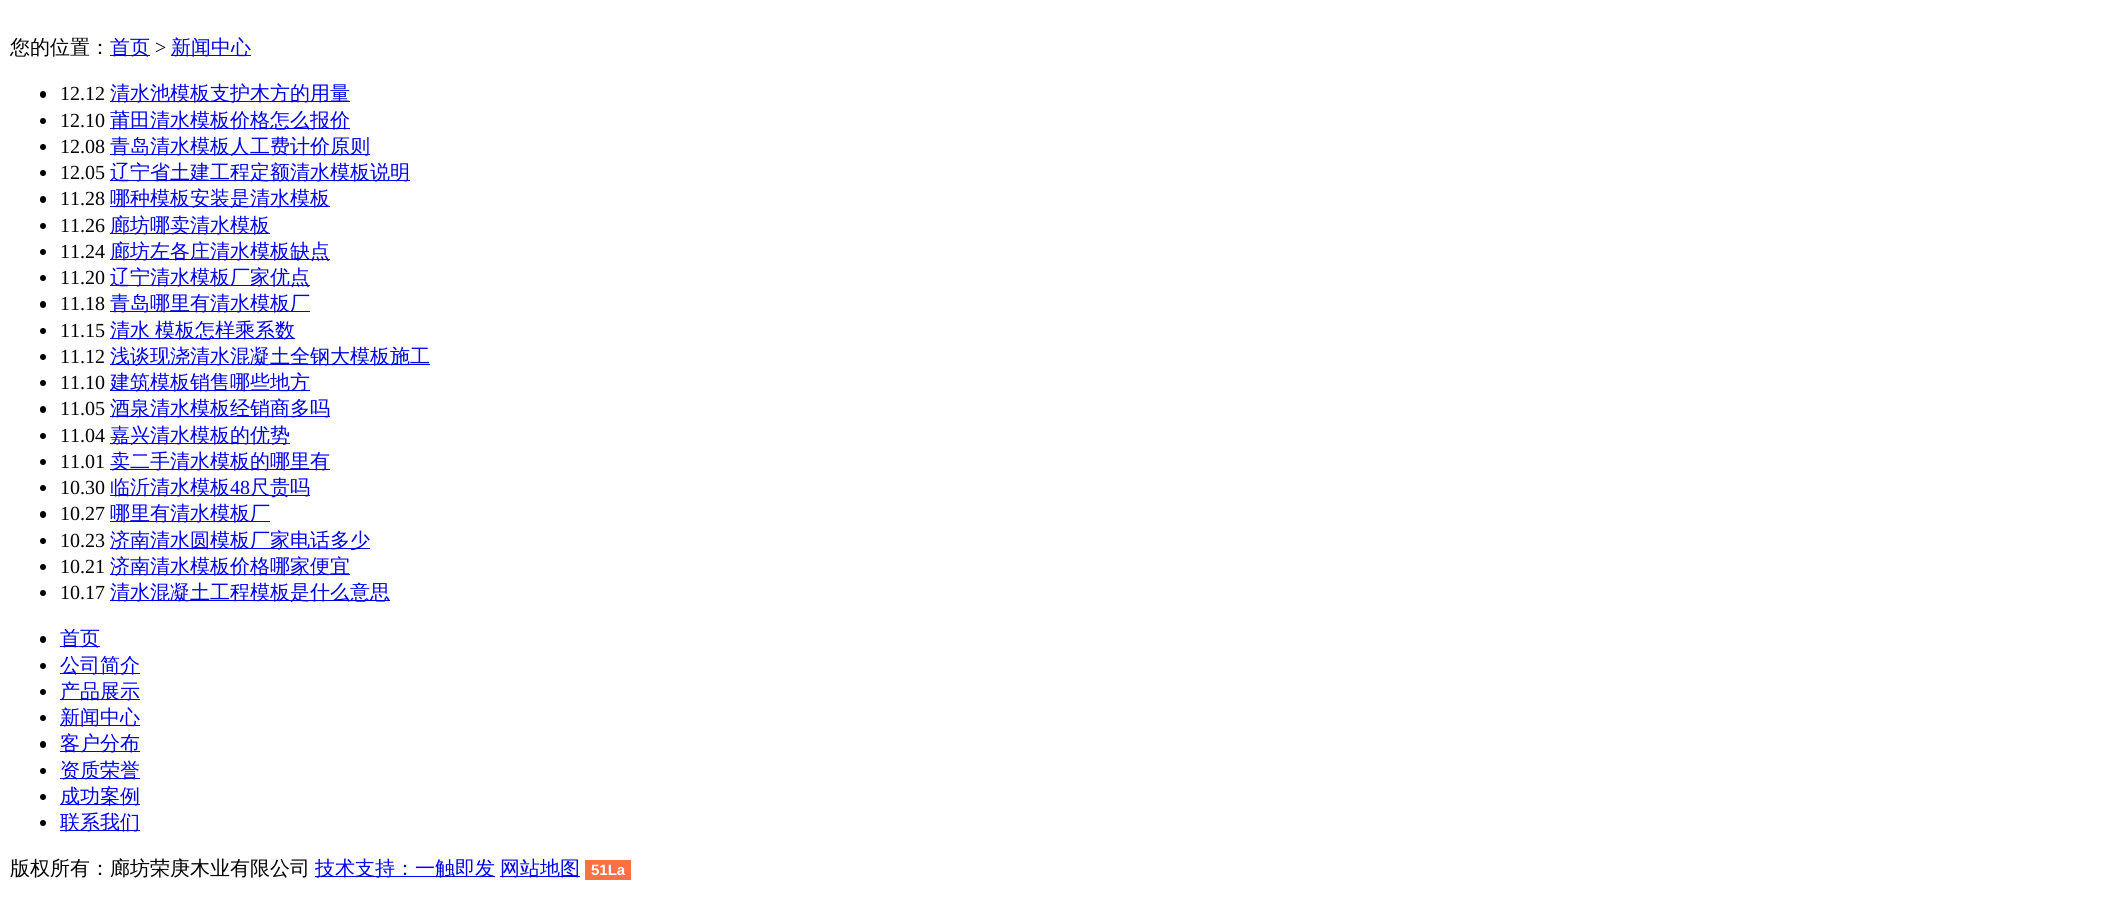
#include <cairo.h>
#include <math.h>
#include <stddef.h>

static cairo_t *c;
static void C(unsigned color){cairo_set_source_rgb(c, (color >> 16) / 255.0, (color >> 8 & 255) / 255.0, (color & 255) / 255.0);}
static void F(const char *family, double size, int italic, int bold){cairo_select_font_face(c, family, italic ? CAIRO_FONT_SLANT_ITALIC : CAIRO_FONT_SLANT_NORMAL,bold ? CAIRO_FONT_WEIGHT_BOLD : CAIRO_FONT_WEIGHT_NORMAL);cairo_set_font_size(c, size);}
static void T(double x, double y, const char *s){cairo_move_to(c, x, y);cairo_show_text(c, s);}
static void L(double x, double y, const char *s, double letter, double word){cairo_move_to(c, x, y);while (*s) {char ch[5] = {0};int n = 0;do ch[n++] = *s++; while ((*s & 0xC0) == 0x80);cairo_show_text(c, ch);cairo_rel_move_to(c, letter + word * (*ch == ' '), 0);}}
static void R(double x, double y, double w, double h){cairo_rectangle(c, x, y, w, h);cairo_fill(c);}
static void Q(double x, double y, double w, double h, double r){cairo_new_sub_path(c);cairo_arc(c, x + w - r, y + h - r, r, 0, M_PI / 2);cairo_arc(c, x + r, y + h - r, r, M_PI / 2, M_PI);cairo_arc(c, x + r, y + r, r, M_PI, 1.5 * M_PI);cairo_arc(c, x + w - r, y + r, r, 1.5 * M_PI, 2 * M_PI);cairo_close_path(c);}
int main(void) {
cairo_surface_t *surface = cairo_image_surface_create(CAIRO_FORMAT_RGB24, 2103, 902);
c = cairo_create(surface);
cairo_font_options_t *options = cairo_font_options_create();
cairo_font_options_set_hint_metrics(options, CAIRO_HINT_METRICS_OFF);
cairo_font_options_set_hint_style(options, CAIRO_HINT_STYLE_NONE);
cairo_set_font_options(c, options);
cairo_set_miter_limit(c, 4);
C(0xffffff);
cairo_paint(c);
F("WenQuanYi Zen Hei Medium",20,0,0);
C(0x000000);
T(10,54,"您的位置：");
C(0x0000ee);
R(110,55,40,1);
T(110,54,"首页");
F("Liberation Serif",20,0,0);
C(0x000000);
T(155,54,">");
C(0x0000ee);
R(171,55,80,1);
F("WenQuanYi Zen Hei Medium",20,0,0);
T(171,54,"新闻中心");
C(0x000000);
Q(40,91,6,7,3);
cairo_fill(c);
F("Liberation Serif",20,0,0);
T(60,100,"12.12");
C(0x0000ee);
R(110,101,240,1);
F("WenQuanYi Zen Hei Medium",20,0,0);
T(110,100,"清水池模板支护木方的用量");
C(0x000000);
cairo_new_path(c);
cairo_arc(c,43,121,3,0,2 * M_PI);
cairo_fill(c);
F("Liberation Serif",20,0,0);
T(60,127,"12.10");
C(0x0000ee);
R(110,128,240,1);
F("WenQuanYi Zen Hei Medium",20,0,0);
T(110,127,"莆田清水模板价格怎么报价");
C(0x000000);
cairo_new_path(c);
cairo_arc(c,43,147,3,0,2 * M_PI);
cairo_fill(c);
F("Liberation Serif",20,0,0);
T(60,153,"12.08");
C(0x0000ee);
R(110,154,260,1);
F("WenQuanYi Zen Hei Medium",20,0,0);
T(110,153,"青岛清水模板人工费计价原则");
C(0x000000);
cairo_new_path(c);
cairo_arc(c,43,173,3,0,2 * M_PI);
cairo_fill(c);
F("Liberation Serif",20,0,0);
T(60,179,"12.05");
C(0x0000ee);
R(110,180,300,1);
F("WenQuanYi Zen Hei Medium",20,0,0);
T(110,179,"辽宁省土建工程定额清水模板说明");
C(0x000000);
Q(40,196,6,7,3);
cairo_fill(c);
F("Liberation Serif",20,0,0);
T(60,205,"11.28");
C(0x0000ee);
R(110,206,220,1);
F("WenQuanYi Zen Hei Medium",20,0,0);
T(110,205,"哪种模板安装是清水模板");
C(0x000000);
cairo_new_path(c);
cairo_arc(c,43,226,3,0,2 * M_PI);
cairo_fill(c);
F("Liberation Serif",20,0,0);
T(60,232,"11.26");
C(0x0000ee);
R(110,233,160,1);
F("WenQuanYi Zen Hei Medium",20,0,0);
T(110,232,"廊坊哪卖清水模板");
C(0x000000);
cairo_new_path(c);
cairo_arc(c,43,252,3,0,2 * M_PI);
cairo_fill(c);
F("Liberation Serif",20,0,0);
T(60,258,"11.24");
C(0x0000ee);
R(110,259,220,1);
F("WenQuanYi Zen Hei Medium",20,0,0);
T(110,258,"廊坊左各庄清水模板缺点");
C(0x000000);
cairo_new_path(c);
cairo_arc(c,43,278,3,0,2 * M_PI);
cairo_fill(c);
F("Liberation Serif",20,0,0);
T(60,284,"11.20");
C(0x0000ee);
R(110,285,200,1);
F("WenQuanYi Zen Hei Medium",20,0,0);
T(110,284,"辽宁清水模板厂家优点");
C(0x000000);
Q(40,301,6,7,3);
cairo_fill(c);
F("Liberation Serif",20,0,0);
T(60,310,"11.18");
C(0x0000ee);
R(110,311,200,1);
F("WenQuanYi Zen Hei Medium",20,0,0);
T(110,310,"青岛哪里有清水模板厂");
C(0x000000);
cairo_new_path(c);
cairo_arc(c,43,331,3,0,2 * M_PI);
cairo_fill(c);
F("Liberation Serif",20,0,0);
T(60,337,"11.15");
C(0x0000ee);
R(110,338,185,1);
F("WenQuanYi Zen Hei Medium",20,0,0);
L(110,337,"清水 模板怎样乘系数",0,-1);
C(0x000000);
cairo_new_path(c);
cairo_arc(c,43,357,3,0,2 * M_PI);
cairo_fill(c);
F("Liberation Serif",20,0,0);
T(60,363,"11.12");
C(0x0000ee);
R(110,364,320,1);
F("WenQuanYi Zen Hei Medium",20,0,0);
T(110,363,"浅谈现浇清水混凝土全钢大模板施工");
C(0x000000);
cairo_new_path(c);
cairo_arc(c,43,383,3,0,2 * M_PI);
cairo_fill(c);
F("Liberation Serif",20,0,0);
T(60,389,"11.10");
C(0x0000ee);
R(110,390,200,1);
F("WenQuanYi Zen Hei Medium",20,0,0);
T(110,389,"建筑模板销售哪些地方");
C(0x000000);
Q(40,406,6,7,3);
cairo_fill(c);
F("Liberation Serif",20,0,0);
T(60,415,"11.05");
C(0x0000ee);
R(110,416,220,1);
F("WenQuanYi Zen Hei Medium",20,0,0);
T(110,415,"酒泉清水模板经销商多吗");
C(0x000000);
cairo_new_path(c);
cairo_arc(c,43,436,3,0,2 * M_PI);
cairo_fill(c);
F("Liberation Serif",20,0,0);
T(60,442,"11.04");
C(0x0000ee);
R(110,443,180,1);
F("WenQuanYi Zen Hei Medium",20,0,0);
T(110,442,"嘉兴清水模板的优势");
C(0x000000);
cairo_new_path(c);
cairo_arc(c,43,462,3,0,2 * M_PI);
cairo_fill(c);
F("Liberation Serif",20,0,0);
T(60,468,"11.01");
C(0x0000ee);
R(110,469,220,1);
F("WenQuanYi Zen Hei Medium",20,0,0);
T(110,468,"卖二手清水模板的哪里有");
C(0x000000);
cairo_new_path(c);
cairo_arc(c,43,488,3,0,2 * M_PI);
cairo_fill(c);
F("Liberation Serif",20,0,0);
T(60,494,"10.30");
C(0x0000ee);
R(110,495,200,1);
F("WenQuanYi Zen Hei Medium",20,0,0);
T(110,494,"临沂清水模板");
F("Liberation Serif",20,0,0);
T(230,494,"48");
F("WenQuanYi Zen Hei Medium",20,0,0);
T(250,494,"尺贵吗");
C(0x000000);
Q(40,511,6,7,3);
cairo_fill(c);
F("Liberation Serif",20,0,0);
T(60,520,"10.27");
C(0x0000ee);
R(110,521,160,1);
F("WenQuanYi Zen Hei Medium",20,0,0);
T(110,520,"哪里有清水模板厂");
C(0x000000);
cairo_new_path(c);
cairo_arc(c,43,541,3,0,2 * M_PI);
cairo_fill(c);
F("Liberation Serif",20,0,0);
T(60,547,"10.23");
C(0x0000ee);
R(110,548,260,1);
F("WenQuanYi Zen Hei Medium",20,0,0);
T(110,547,"济南清水圆模板厂家电话多少");
C(0x000000);
cairo_new_path(c);
cairo_arc(c,43,567,3,0,2 * M_PI);
cairo_fill(c);
F("Liberation Serif",20,0,0);
T(60,573,"10.21");
C(0x0000ee);
R(110,574,240,1);
F("WenQuanYi Zen Hei Medium",20,0,0);
T(110,573,"济南清水模板价格哪家便宜");
C(0x000000);
cairo_new_path(c);
cairo_arc(c,43,593,3,0,2 * M_PI);
cairo_fill(c);
F("Liberation Serif",20,0,0);
T(60,599,"10.17");
C(0x0000ee);
R(110,600,280,1);
F("WenQuanYi Zen Hei Medium",20,0,0);
T(110,599,"清水混凝土工程模板是什么意思");
C(0x000000);
Q(40,636,6,7,3);
cairo_fill(c);
C(0x0000ee);
R(60,646,40,1);
T(60,645,"首页");
C(0x000000);
cairo_new_path(c);
cairo_arc(c,43,666,3,0,2 * M_PI);
cairo_fill(c);
C(0x0000ee);
R(60,673,80,1);
T(60,672,"公司简介");
C(0x000000);
cairo_new_path(c);
cairo_arc(c,43,692,3,0,2 * M_PI);
cairo_fill(c);
C(0x0000ee);
R(60,699,80,1);
T(60,698,"产品展示");
C(0x000000);
cairo_new_path(c);
cairo_arc(c,43,718,3,0,2 * M_PI);
cairo_fill(c);
C(0x0000ee);
R(60,725,80,1);
T(60,724,"新闻中心");
C(0x000000);
Q(40,741,6,7,3);
cairo_fill(c);
C(0x0000ee);
R(60,751,80,1);
T(60,750,"客户分布");
C(0x000000);
cairo_new_path(c);
cairo_arc(c,43,771,3,0,2 * M_PI);
cairo_fill(c);
C(0x0000ee);
R(60,778,80,1);
T(60,777,"资质荣誉");
C(0x000000);
cairo_new_path(c);
cairo_arc(c,43,797,3,0,2 * M_PI);
cairo_fill(c);
C(0x0000ee);
R(60,804,80,1);
T(60,803,"成功案例");
C(0x000000);
cairo_new_path(c);
cairo_arc(c,43,823,3,0,2 * M_PI);
cairo_fill(c);
C(0x0000ee);
R(60,830,80,1);
T(60,829,"联系我们");
C(0x000000);
T(10,875,"版权所有：廊坊荣庚木业有限公司");
C(0x0000ee);
R(315,876,180,1);
T(315,875,"技术支持：一触即发");
R(500,876,80,1);
T(500,875,"网站地图");
C(0xff7043);
R(585,860,46,20);
F("Liberation Sans",15,0,1);
C(0xffffff);
T(591,875,"51La");
cairo_surface_write_to_png(surface, "o.png");
cairo_font_options_destroy(options);
cairo_destroy(c);
cairo_surface_destroy(surface);
return 0;
}
